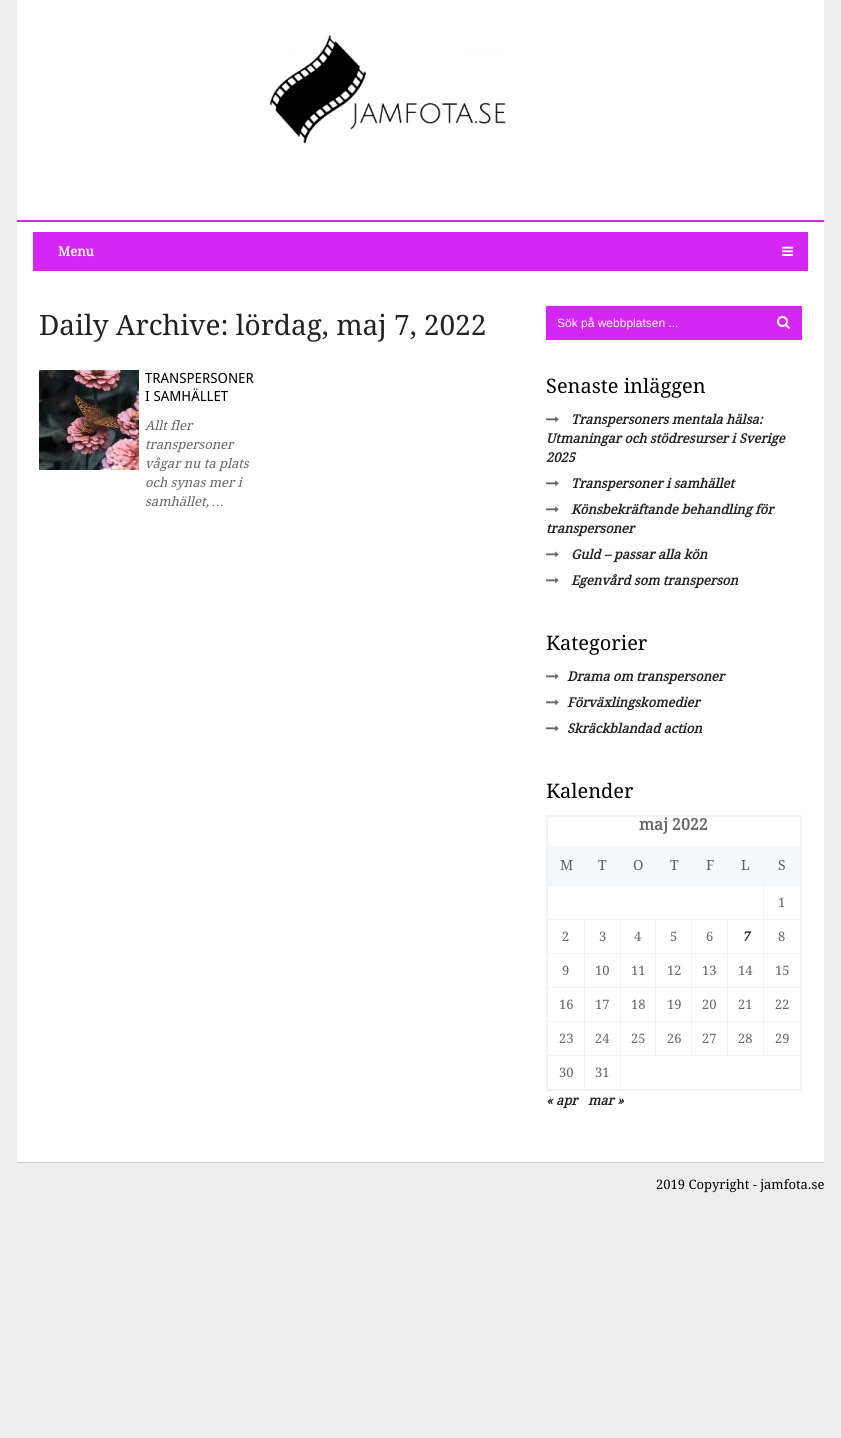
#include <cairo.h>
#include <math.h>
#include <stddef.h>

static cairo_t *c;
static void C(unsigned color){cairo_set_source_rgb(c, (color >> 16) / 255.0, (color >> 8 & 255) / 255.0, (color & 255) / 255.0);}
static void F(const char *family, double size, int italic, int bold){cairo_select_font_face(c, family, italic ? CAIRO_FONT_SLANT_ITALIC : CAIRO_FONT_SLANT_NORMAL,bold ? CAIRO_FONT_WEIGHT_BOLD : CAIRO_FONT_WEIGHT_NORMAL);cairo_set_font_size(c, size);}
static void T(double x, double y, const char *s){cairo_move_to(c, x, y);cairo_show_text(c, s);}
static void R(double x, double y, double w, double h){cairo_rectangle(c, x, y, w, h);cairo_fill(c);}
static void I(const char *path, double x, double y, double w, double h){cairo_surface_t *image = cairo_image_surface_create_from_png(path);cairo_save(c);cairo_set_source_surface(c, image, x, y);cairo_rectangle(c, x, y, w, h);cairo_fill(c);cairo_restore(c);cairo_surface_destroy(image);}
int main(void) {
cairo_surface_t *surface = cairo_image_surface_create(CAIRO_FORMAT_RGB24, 841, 1438);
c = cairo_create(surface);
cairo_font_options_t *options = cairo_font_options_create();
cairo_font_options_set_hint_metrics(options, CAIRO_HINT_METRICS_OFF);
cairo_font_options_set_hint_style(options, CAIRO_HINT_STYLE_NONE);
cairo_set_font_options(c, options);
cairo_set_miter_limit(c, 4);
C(0xeeeeee);
cairo_paint(c);
C(0xffffff);
R(17,0,807,1162);
I("1.png",270,35,236,109);
C(0xd527f4);
R(17,220,807,2);
R(33,232,775,39);
F("Droid Serif",13,0,1);
C(0xffffff);
T(58,256,"Menu");
I("2.png",782,246,12,10);
F("Droid Serif",28,0,0);
C(0x222222);
T(39,335,"Daily Archive: lördag, maj 7, 2022");
I("3.png",39,370,100,100);
F("Droid Sans",14,0,0);
C(0x000000);
T(145,383,"TRANSPERSONER");
T(145,401,"I SAMHÄLLET");
F("Droid Serif",13,1,0);
C(0x656565);
T(145,430,"Allt fler");
T(145,449,"transpersoner");
T(145,468,"vågar nu ta plats");
T(145,487,"och synas mer i");
T(145,506,"samhället,");
F("Liberation Serif",13,1,0);
T(212,506,"…");
C(0xd527f4);
R(546,306,256,34);
F("Liberation Sans",12,0,0);
C(0xffffff);
T(557,327,"Sök på webbplatsen ...");
I("4.png",777,316,13,13);
F("Droid Serif",20,0,0);
C(0x000000);
T(546,393,"Senaste inläggen");
I("5.png",546,416,13,7);
F("Droid Serif",13,1,1);
C(0x222222);
T(571,424,"Transpersoners mentala hälsa:");
T(546,443,"Utmaningar och stödresurser i Sverige");
T(546,462,"2025");
I("5.png",546,480,13,7);
T(571,488,"Transpersoner i samhället");
I("5.png",546,506,13,7);
T(571,514,"Könsbekräftande behandling för");
T(546,533,"transpersoner");
I("5.png",546,551,13,7);
T(571,559,"Guld – passar alla kön");
I("5.png",546,577,13,7);
T(571,585,"Egenvård som transperson");
F("Droid Serif",20,0,0);
C(0x000000);
T(546,650,"Kategorier");
I("5.png",546,673,13,7);
F("Droid Serif",13,1,1);
C(0x222222);
T(567,681,"Drama om transpersoner");
I("5.png",546,699,13,7);
T(567,707,"Förväxlingskomedier");
I("5.png",546,725,13,7);
T(567,733,"Skräckblandad action");
F("Droid Serif",20,0,0);
C(0x000000);
T(546,798,"Kalender");
C(0xf1f4f6);
R(546,815,256,2);
R(547,885,254,1);
R(547,919,254,1);
R(547,953,254,1);
R(547,987,254,1);
R(547,1021,254,1);
R(547,1055,254,1);
R(800,815,2,276);
R(584,1055,1,36);
R(620,1055,1,36);
R(546,1089,256,2);
R(546,815,2,276);
F("Droid Serif",16,0,1);
C(0x656565);
T(639,830,"maj 2022");
C(0xf7f8f9);
R(548,845,252,40);
F("Droid Serif",14,0,0);
C(0x585f65);
T(560,870,"M");
T(598,870,"T");
T(633,870,"O");
T(670,870,"T");
T(706,870,"F");
T(741,870,"L");
T(778,870,"S");
C(0xf1f4f6);
R(763,1021,1,35);
R(763,987,1,35);
R(763,953,1,35);
R(763,919,1,35);
R(763,885,1,35);
F("Droid Serif",13,0,0);
C(0x656565);
T(778,907,"1");
C(0xf1f4f6);
R(584,1021,1,35);
R(584,987,1,35);
R(584,953,1,35);
R(584,919,1,35);
C(0x656565);
T(562,941,"2");
C(0xf1f4f6);
R(620,1021,1,35);
R(620,987,1,35);
R(620,953,1,35);
R(620,919,1,35);
C(0x656565);
T(599,941,"3");
C(0xf1f4f6);
R(655,1021,1,35);
R(655,987,1,35);
R(655,953,1,35);
R(655,919,1,35);
C(0x656565);
T(634,941,"4");
C(0xf1f4f6);
R(691,1021,1,35);
R(691,987,1,35);
R(691,953,1,35);
R(691,919,1,35);
C(0x656565);
T(670,941,"5");
C(0xf1f4f6);
R(727,1021,1,35);
R(727,987,1,35);
R(727,953,1,35);
R(727,919,1,35);
C(0x656565);
T(706,941,"6");
F("Droid Serif",13,1,1);
C(0x222222);
T(742,941,"7");
F("Droid Serif",13,0,0);
C(0x656565);
T(778,941,"8");
T(562,975,"9");
T(595,975,"10");
T(631,975,"11");
T(667,975,"12");
T(702,975,"13");
T(738,975,"14");
T(775,975,"15");
T(559,1009,"16");
T(595,1009,"17");
T(631,1009,"18");
T(667,1009,"19");
T(702,1009,"20");
T(738,1009,"21");
T(775,1009,"22");
T(559,1043,"23");
T(595,1043,"24");
T(631,1043,"25");
T(667,1043,"26");
T(702,1043,"27");
T(738,1043,"28");
T(775,1043,"29");
T(559,1077,"30");
T(595,1077,"31");
F("Droid Serif",13,1,1);
C(0x222222);
T(546,1105,"« apr");
T(588,1105,"mar »");
C(0xcccccc);
R(17,1162,807,1);
F("Droid Serif",13,0,0);
C(0x000000);
T(656,1189,"2019 Copyright - jamfota.se");
cairo_surface_write_to_png(surface, "o.png");
cairo_font_options_destroy(options);
cairo_destroy(c);
cairo_surface_destroy(surface);
return 0;
}
